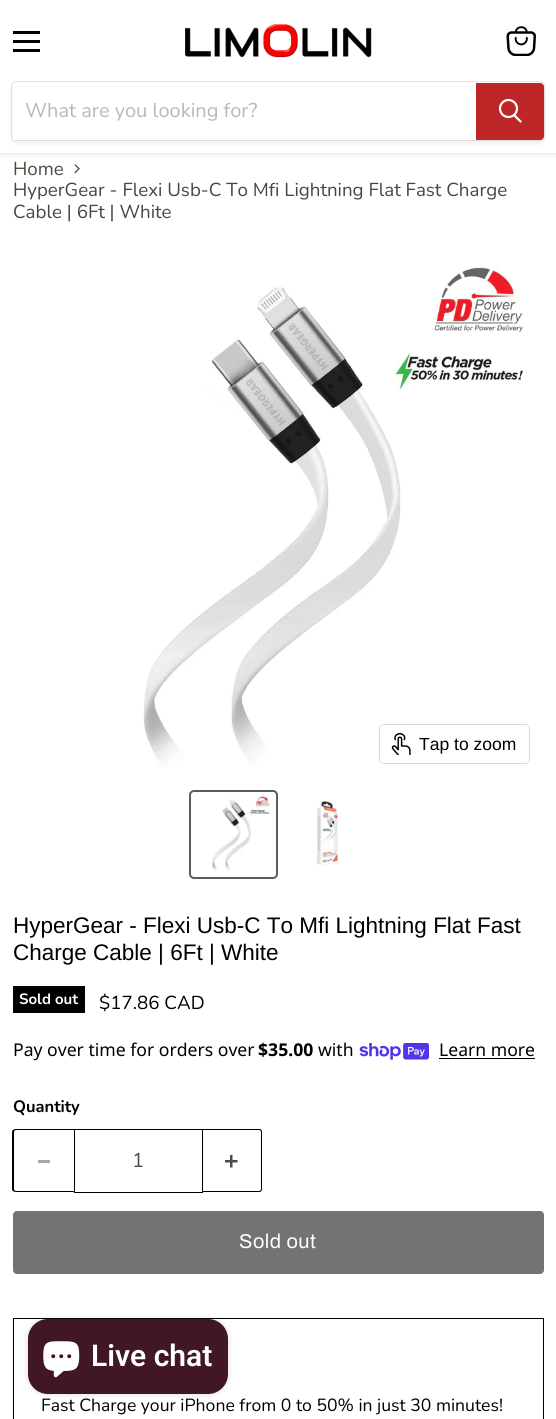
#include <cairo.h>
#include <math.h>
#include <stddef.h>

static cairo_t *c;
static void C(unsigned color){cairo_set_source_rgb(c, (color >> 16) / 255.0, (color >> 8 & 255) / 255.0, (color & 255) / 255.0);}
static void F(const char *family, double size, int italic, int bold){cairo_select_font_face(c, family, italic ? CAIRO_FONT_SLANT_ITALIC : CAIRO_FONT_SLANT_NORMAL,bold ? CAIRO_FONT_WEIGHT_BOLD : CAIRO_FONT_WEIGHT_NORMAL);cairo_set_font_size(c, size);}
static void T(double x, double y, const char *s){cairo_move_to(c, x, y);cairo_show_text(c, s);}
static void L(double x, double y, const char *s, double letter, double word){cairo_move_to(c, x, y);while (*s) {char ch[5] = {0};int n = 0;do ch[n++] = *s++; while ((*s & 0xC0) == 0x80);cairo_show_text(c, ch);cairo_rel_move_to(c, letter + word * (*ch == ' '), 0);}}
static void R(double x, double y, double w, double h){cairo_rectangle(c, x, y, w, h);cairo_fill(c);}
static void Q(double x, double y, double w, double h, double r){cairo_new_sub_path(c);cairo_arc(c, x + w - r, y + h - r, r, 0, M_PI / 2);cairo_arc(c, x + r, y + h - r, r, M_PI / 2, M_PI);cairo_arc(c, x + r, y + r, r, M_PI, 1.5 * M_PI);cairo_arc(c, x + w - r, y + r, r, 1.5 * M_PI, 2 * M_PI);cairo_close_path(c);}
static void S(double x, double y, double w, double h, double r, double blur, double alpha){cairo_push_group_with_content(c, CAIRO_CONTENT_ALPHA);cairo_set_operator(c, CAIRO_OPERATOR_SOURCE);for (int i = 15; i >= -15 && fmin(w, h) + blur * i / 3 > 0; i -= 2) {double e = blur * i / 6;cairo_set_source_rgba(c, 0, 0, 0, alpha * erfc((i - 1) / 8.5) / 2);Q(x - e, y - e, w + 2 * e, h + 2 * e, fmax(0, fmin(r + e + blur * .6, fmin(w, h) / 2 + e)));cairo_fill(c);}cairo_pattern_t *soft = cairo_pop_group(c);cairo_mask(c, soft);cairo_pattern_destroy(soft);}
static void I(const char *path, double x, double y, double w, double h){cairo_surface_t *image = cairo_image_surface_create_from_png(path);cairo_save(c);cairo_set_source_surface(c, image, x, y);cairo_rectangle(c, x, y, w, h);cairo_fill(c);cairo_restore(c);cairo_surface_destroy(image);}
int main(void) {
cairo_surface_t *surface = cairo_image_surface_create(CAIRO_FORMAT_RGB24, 556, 1419);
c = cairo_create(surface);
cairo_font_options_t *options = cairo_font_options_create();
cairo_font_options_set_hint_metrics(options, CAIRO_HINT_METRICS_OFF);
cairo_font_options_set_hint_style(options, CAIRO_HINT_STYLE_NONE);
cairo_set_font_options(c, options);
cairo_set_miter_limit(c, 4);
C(0xffffff);
cairo_paint(c);
C(0x808080);
S(0,1,556,153,0,2.5,.25);
C(0xffffff);
R(0,0,556,153);
C(0x000000);
R(13,31,27,3);
R(13,40,27,3);
R(13,49,27,3);
I("1.png",506,26,30,30);
I("2.png",185,24,187,34);
C(0x808080);
S(11,84,534,60,5,2,.11);
Q(11.5,81.5,533,59,4.5);
cairo_set_source_rgba(c,0.502,0.502,0.502,0.2);
cairo_set_line_width(c,1);
cairo_stroke(c);
C(0xffffff);
R(13,83,463,57);
F("Nunito",20,0,0);
C(0xb8b8b8);
T(25,117,"What are you looking for?");
C(0xbe2727);
cairo_new_path(c);
cairo_move_to(c,476.5,83.5);
cairo_line_to(c,540,83.5);
cairo_curve_to(c,542,83.5,543.5,85,543.5,87);
cairo_line_to(c,543.5,136);
cairo_curve_to(c,543.5,138,542,139.5,540,139.5);
cairo_line_to(c,476.5,139.5);
cairo_close_path(c);
cairo_fill_preserve(c);
cairo_stroke(c);
cairo_new_path(c);
cairo_move_to(c,520.5,121.5);
cairo_line_to(c,514.5,115.5);
C(0xffffff);
cairo_set_line_width(c,2.2);
cairo_set_line_cap(c,CAIRO_LINE_CAP_ROUND);
cairo_stroke(c);
cairo_arc(c,508.5,108.5,8.5,0,2 * M_PI);
cairo_set_line_cap(c,CAIRO_LINE_CAP_BUTT);
cairo_stroke(c);
F("Nunito",18.75,0,0);
C(0x494d41);
T(13,175,"Home");
I("3.png",74,164,6,10);
C(0x464646);
T(13,196,"HyperGear - Flexi Usb-C To Mfi Lightning Flat Fast Charge");
T(13,218,"Cable | 6Ft | White");
I("4.png",143,267,381,500);
Q(379.5,724.5,150,39,4.5);
C(0xd9d9d9);
cairo_set_line_width(c,1);
cairo_stroke(c);
cairo_set_source_rgba(c,1,1,1,0.9);
Q(380,725,149,38,4);
cairo_fill(c);
I("5.png",391,733,20,22);
F("Liberation Sans",17.5,0,0);
C(0x000000);
T(419,750,"Tap to zoom");
Q(190,791,87,87,4);
C(0x5c5c5c);
cairo_set_line_width(c,2);
cairo_stroke(c);
I("6.png",212,796,58,76);
I("7.png",315,801,23,64);
F("Arimo",22.5,0,0);
C(0x000000);
T(13,933,"HyperGear - Flexi Usb-C To Mfi Lightning Flat Fast");
T(13,960,"Charge Cable | 6Ft | White");
R(13,986,72,27);
F("Nunito",15,0,1);
C(0xffffff);
T(19,1004,"Sold out");
F("Nunito",18.75,0,0);
C(0x000000);
T(99,1009,"$17.86 CAD");
F("Noto Sans",17.6,0,0);
T(13,1056,"Pay over time for orders over");
F("Noto Sans",17.6,0,1);
T(258,1056,"$35.00");
F("Noto Sans",17.6,0,0);
T(318,1056,"with");
I("8.png",359,1043,70,17);
T(439,1056,"Learn more");
R(439,1058,96,1);
F("Nunito",16.5,0,1);
T(13,1112,"Quantity");
cairo_set_fill_rule(c,CAIRO_FILL_RULE_EVEN_ODD);
cairo_new_path(c);
cairo_move_to(c,16,1129);
cairo_line_to(c,74,1129);
cairo_line_to(c,74,1192);
cairo_line_to(c,16,1192);
cairo_curve_to(c,14,1192,12,1191,12,1189);
cairo_line_to(c,12,1132);
cairo_curve_to(c,12,1130,14,1129,16,1129);
cairo_close_path(c);
cairo_move_to(c,16,1130);
cairo_line_to(c,74,1130);
cairo_line_to(c,74,1191);
cairo_line_to(c,16,1191);
cairo_curve_to(c,15,1191,14,1190,14,1189);
cairo_line_to(c,14,1132);
cairo_curve_to(c,14,1131,15,1130,16,1130);
cairo_close_path(c);
cairo_fill(c);
C(0xa6a6a6);
R(38,1160,12,3);
cairo_rectangle(c,74.5,1129.5,128,63);
C(0x000000);
cairo_set_line_width(c,1);
cairo_stroke(c);
F("Nunito",20,0,0);
C(0x4d4d4d);
T(132,1167,"1");
C(0x000000);
cairo_new_path(c);
cairo_move_to(c,202,1129);
cairo_line_to(c,259,1129);
cairo_curve_to(c,261,1129,262,1130,262,1132);
cairo_line_to(c,262,1189);
cairo_curve_to(c,262,1191,261,1192,259,1192);
cairo_line_to(c,202,1192);
cairo_close_path(c);
cairo_move_to(c,202,1130);
cairo_line_to(c,259,1130);
cairo_curve_to(c,260,1130,261,1131,261,1132);
cairo_line_to(c,261,1189);
cairo_curve_to(c,261,1190,260,1191,259,1191);
cairo_line_to(c,202,1191);
cairo_close_path(c);
cairo_fill(c);
I("9.png",225,1155,13,13);
C(0x737373);
Q(13.5,1211.5,530,62,3.5);
cairo_fill_preserve(c);
cairo_stroke(c);
F("Archivo",20,0,0);
C(0xffffff);
L(239,1248,"Sold out",.5,0);
C(0x000000);
R(13,1318,531,1);
R(543,1318,1,101);
R(13,1318,1,101);
F("Nunito",17.6,0,0);
T(41,1411,"Fast Charge your iPhone from 0 to 50% in just 30 minutes!");
C(0x000000);
S(28,1319,200,75,20,3,.15);
C(0x411727);
Q(28,1319,200,75,20);
cairo_fill(c);
I("10.png",43,1341,37,37);
F("Roboto SemiBold",30,0,0);
C(0xffffff);
T(91,1366,"Live chat");
cairo_surface_write_to_png(surface, "o.png");
cairo_font_options_destroy(options);
cairo_destroy(c);
cairo_surface_destroy(surface);
return 0;
}
